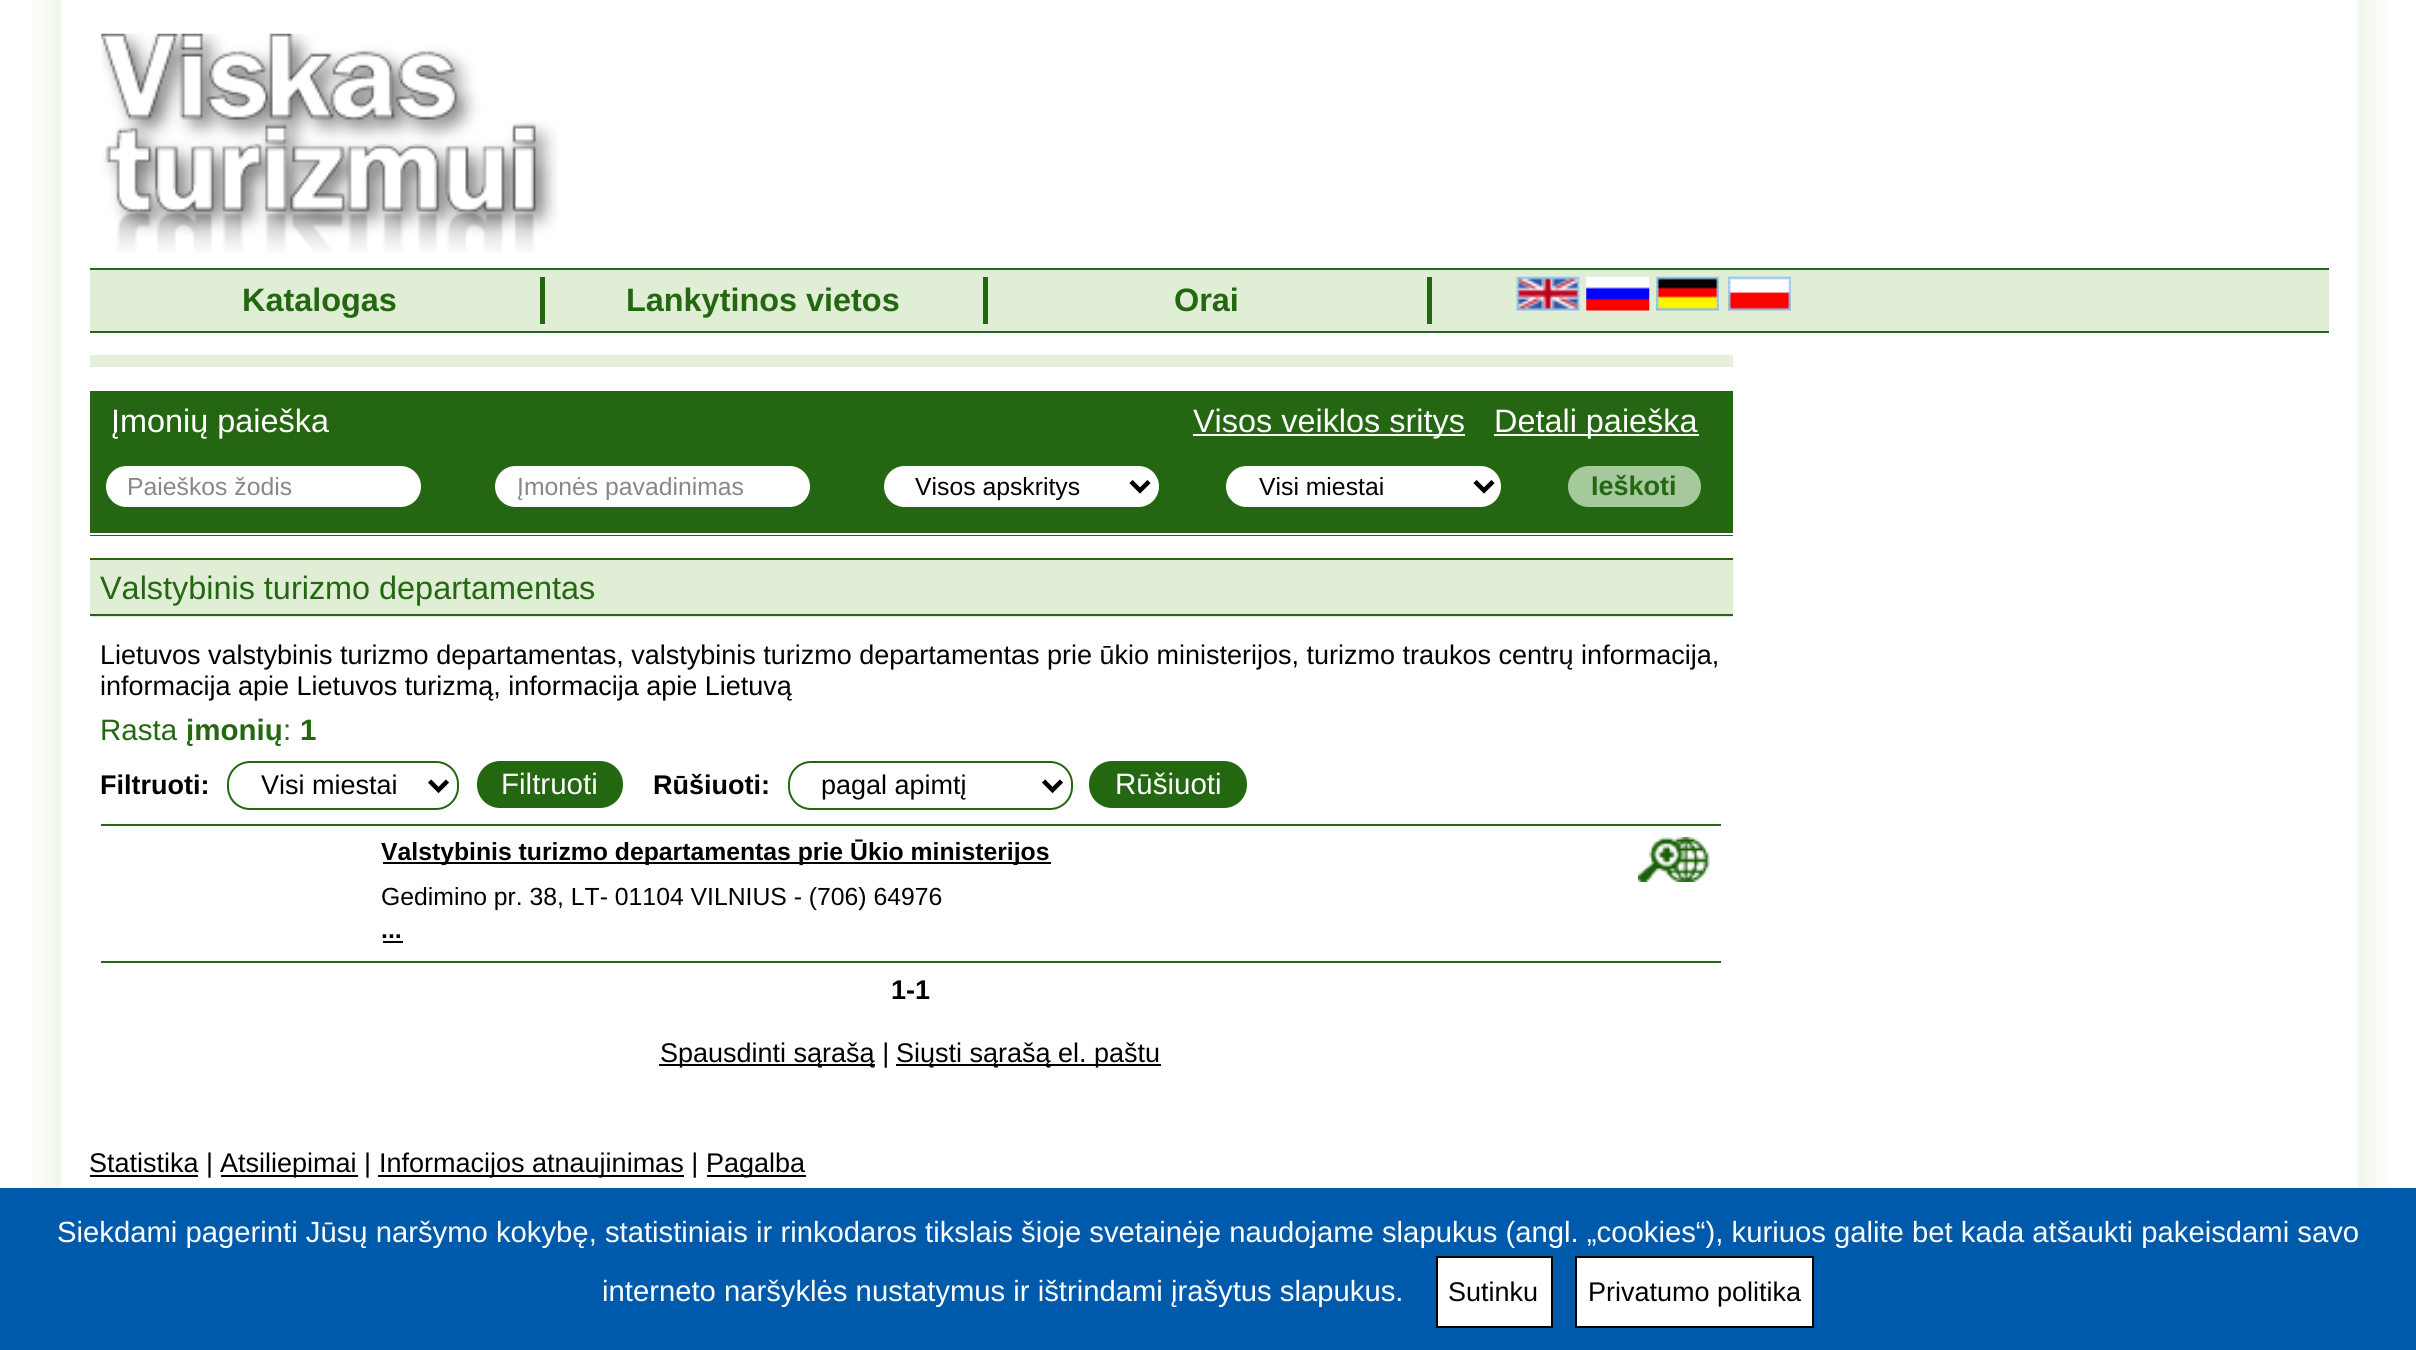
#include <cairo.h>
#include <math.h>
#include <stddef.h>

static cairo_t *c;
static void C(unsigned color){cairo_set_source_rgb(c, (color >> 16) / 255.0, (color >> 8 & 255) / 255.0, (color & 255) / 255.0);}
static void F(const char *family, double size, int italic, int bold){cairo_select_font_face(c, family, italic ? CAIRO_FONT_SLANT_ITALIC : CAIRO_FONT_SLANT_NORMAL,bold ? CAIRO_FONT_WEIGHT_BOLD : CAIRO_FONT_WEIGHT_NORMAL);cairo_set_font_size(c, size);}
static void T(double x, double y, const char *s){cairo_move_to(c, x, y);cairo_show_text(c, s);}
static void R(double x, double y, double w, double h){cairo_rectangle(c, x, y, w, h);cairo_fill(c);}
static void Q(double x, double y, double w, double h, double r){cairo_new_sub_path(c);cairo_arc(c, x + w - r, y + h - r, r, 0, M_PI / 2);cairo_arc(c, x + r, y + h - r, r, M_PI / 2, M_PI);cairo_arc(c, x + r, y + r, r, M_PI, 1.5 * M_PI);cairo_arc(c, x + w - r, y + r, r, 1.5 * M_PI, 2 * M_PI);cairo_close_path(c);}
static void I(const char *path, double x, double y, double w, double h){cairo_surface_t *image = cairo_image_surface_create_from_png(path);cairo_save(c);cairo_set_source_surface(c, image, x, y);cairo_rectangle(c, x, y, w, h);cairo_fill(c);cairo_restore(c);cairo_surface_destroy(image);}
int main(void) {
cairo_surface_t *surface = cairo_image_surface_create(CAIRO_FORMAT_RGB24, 2416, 1350);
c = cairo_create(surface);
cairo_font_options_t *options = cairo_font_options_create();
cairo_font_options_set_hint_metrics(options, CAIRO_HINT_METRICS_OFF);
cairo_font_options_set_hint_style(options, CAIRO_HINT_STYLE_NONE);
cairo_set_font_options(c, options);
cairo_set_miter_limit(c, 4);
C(0xffffff);
cairo_paint(c);
I("1.png",31,0,2357,1188);
I("2.png",101,33,457,219);
C(0xe0eed5);
R(90,270,2239,61);
C(0x26641f);
R(90,268,2239,2);
R(90,331,2239,2);
F("Liberation Sans",32.4,0,1);
C(0x246711);
T(242,311,"Katalogas");
R(540,277,5,47);
T(626,311,"Lankytinos vietos");
R(983,277,5,47);
T(1174,311,"Orai");
R(1427,277,5,47);
I("3.png",1516,276,64,35);
I("4.png",1586,276,64,35);
I("5.png",1656,276,63,35);
I("6.png",1728,276,63,35);
C(0xe4f0da);
R(90,355,1643,12);
C(0x256612);
R(90,391,1643,145);
C(0xffffff);
R(90,533,1643,2);
F("Liberation Sans",32.4,0,0);
T(111,432,"Įmonių paieška");
R(1193,434,272,2);
T(1193,432,"Visos veiklos sritys");
R(1494,434,205,2);
T(1494,432,"Detali paieška");
Q(105,465,317,43,21.5);
cairo_fill_preserve(c);
C(0x246711);
cairo_stroke(c);
F("Liberation Sans",24.75,0,0);
C(0x888888);
T(127,495,"Paieškos žodis");
C(0xffffff);
Q(494,465,317,43,21.5);
cairo_fill_preserve(c);
C(0x246711);
cairo_stroke(c);
cairo_save(c);
cairo_rectangle(c,518,473,270,27);
cairo_clip(c);
C(0x888888);
T(517,495,"Įmonės pavadinimas");
cairo_restore(c);
C(0xffffff);
Q(883,465,277,43,21.5);
cairo_fill_preserve(c);
C(0x246711);
cairo_stroke(c);
cairo_new_path(c);
cairo_move_to(c,1131,481.5);
cairo_line_to(c,1140,490.5);
cairo_line_to(c,1149,481.5);
C(0x000000);
cairo_set_line_width(c,4.5);
cairo_stroke(c);
T(915,495,"Visos apskritys");
C(0xffffff);
Q(1225,465,277,43,21.5);
cairo_fill_preserve(c);
C(0x246711);
cairo_set_line_width(c,2);
cairo_stroke(c);
cairo_new_path(c);
cairo_move_to(c,1475,481.5);
cairo_line_to(c,1484,490.5);
cairo_line_to(c,1493,481.5);
C(0x000000);
cairo_set_line_width(c,4.5);
cairo_stroke(c);
T(1259,495,"Visi miestai");
C(0xa5c89d);
Q(1567,465,135,43,21.5);
cairo_fill_preserve(c);
C(0x246711);
cairo_set_line_width(c,2);
cairo_stroke(c);
F("Liberation Sans",27,0,1);
T(1591,495,"Ieškoti");
C(0xe0eed5);
R(90,560,1643,57);
C(0x246711);
R(90,558,1643,2);
R(90,614,1643,2);
F("Liberation Sans",32.4,0,0);
T(100,599,"Valstybinis turizmo departamentas");
R(101,824,1620,2);
F("Liberation Sans",27,0,0);
C(0x000000);
T(100,664,"Lietuvos valstybinis turizmo departamentas, valstybinis turizmo departamentas prie ūkio ministerijos, turizmo traukos centrų informacija,");
T(100,695,"informacija apie Lietuvos turizmą, informacija apie Lietuvą");
F("Liberation Sans",29.5,0,0);
C(0x246711);
T(100,740,"Rasta");
F("Liberation Sans",29.5,0,1);
T(186,740,"įmonių");
F("Liberation Sans",29.5,0,0);
T(283,740,":");
F("Liberation Sans",29.5,0,1);
T(300,740,"1");
F("Liberation Sans",27,0,1);
C(0x000000);
T(100,794,"Filtruoti:");
Q(228,762,230,47,22);
C(0x246711);
cairo_stroke(c);
cairo_new_path(c);
cairo_move_to(c,429.5,781);
cairo_line_to(c,438.5,790);
cairo_line_to(c,447.5,781);
C(0x000000);
cairo_set_line_width(c,4.5);
cairo_stroke(c);
F("Liberation Sans",27,0,0);
T(261,794,"Visi miestai");
C(0x246711);
Q(478,762,144,45,22);
cairo_fill_preserve(c);
cairo_set_line_width(c,2);
cairo_stroke(c);
F("Liberation Sans",29.5,0,0);
C(0xffffff);
T(501,794,"Filtruoti");
F("Liberation Sans",27,0,1);
C(0x000000);
T(653,794,"Rūšiuoti:");
Q(789,762,283,47,22);
C(0x246711);
cairo_stroke(c);
cairo_new_path(c);
cairo_move_to(c,1043.5,781);
cairo_line_to(c,1052.5,790);
cairo_line_to(c,1061.5,781);
C(0x000000);
cairo_set_line_width(c,4.5);
cairo_stroke(c);
F("Liberation Sans",27,0,0);
T(821,794,"pagal apimtį");
C(0x246711);
Q(1090,762,156,45,22);
cairo_fill_preserve(c);
cairo_set_line_width(c,2);
cairo_stroke(c);
F("Liberation Sans",29.5,0,0);
C(0xffffff);
T(1115,794,"Rūšiuoti");
C(0x246711);
R(101,961,1620,2);
C(0x000000);
R(383,862,668,2);
F("Liberation Sans",24.75,0,1);
T(381,860,"Valstybinis turizmo departamentas prie Ūkio ministerijos");
I("7.png",1638,837,72,45);
F("Liberation Sans",24.75,0,0);
T(381,905,"Gedimino pr. 38, LT- 01104 VILNIUS - (706) 64976");
F("Liberation Sans",24.75,0,1);
T(381,938,"...");
R(383,941,20,2);
F("Liberation Sans",27,0,1);
T(891,999,"1-1");
R(659,1064,216,2);
F("Liberation Sans",27,0,0);
T(660,1062,"Spausdinti sąrašą |");
R(896,1064,265,2);
T(896,1062,"Siųsti sąrašą el. paštu");
R(90,1175,108,2);
T(89,1172,"Statistika |");
R(221,1175,137,2);
T(220,1172,"Atsiliepimai |");
R(378,1175,306,2);
T(379,1172,"Informacijos atnaujinimas |");
R(707,1175,99,2);
T(706,1172,"Pagalba");
C(0x005aab);
R(0,1188,2416,162);
F("Liberation Sans",29.25,0,0);
C(0xffffff);
T(57,1242,"Siekdami pagerinti Jūsų naršymo kokybę, statistiniais ir rinkodaros tikslais šioje svetainėje naudojame slapukus (angl. „cookies“), kuriuos galite bet kada atšaukti pakeisdami savo");
T(602,1301,"interneto naršyklės nustatymus ir ištrindami įrašytus slapukus.");
cairo_rectangle(c,1437,1257,115,70);
cairo_fill_preserve(c);
C(0x000000);
cairo_stroke(c);
F("Liberation Sans",27,0,0);
T(1448,1301,"Sutinku");
C(0xffffff);
cairo_rectangle(c,1576,1257,237,70);
cairo_fill_preserve(c);
C(0x000000);
cairo_stroke(c);
T(1588,1301,"Privatumo politika");
cairo_surface_write_to_png(surface, "o.png");
cairo_font_options_destroy(options);
cairo_destroy(c);
cairo_surface_destroy(surface);
return 0;
}
